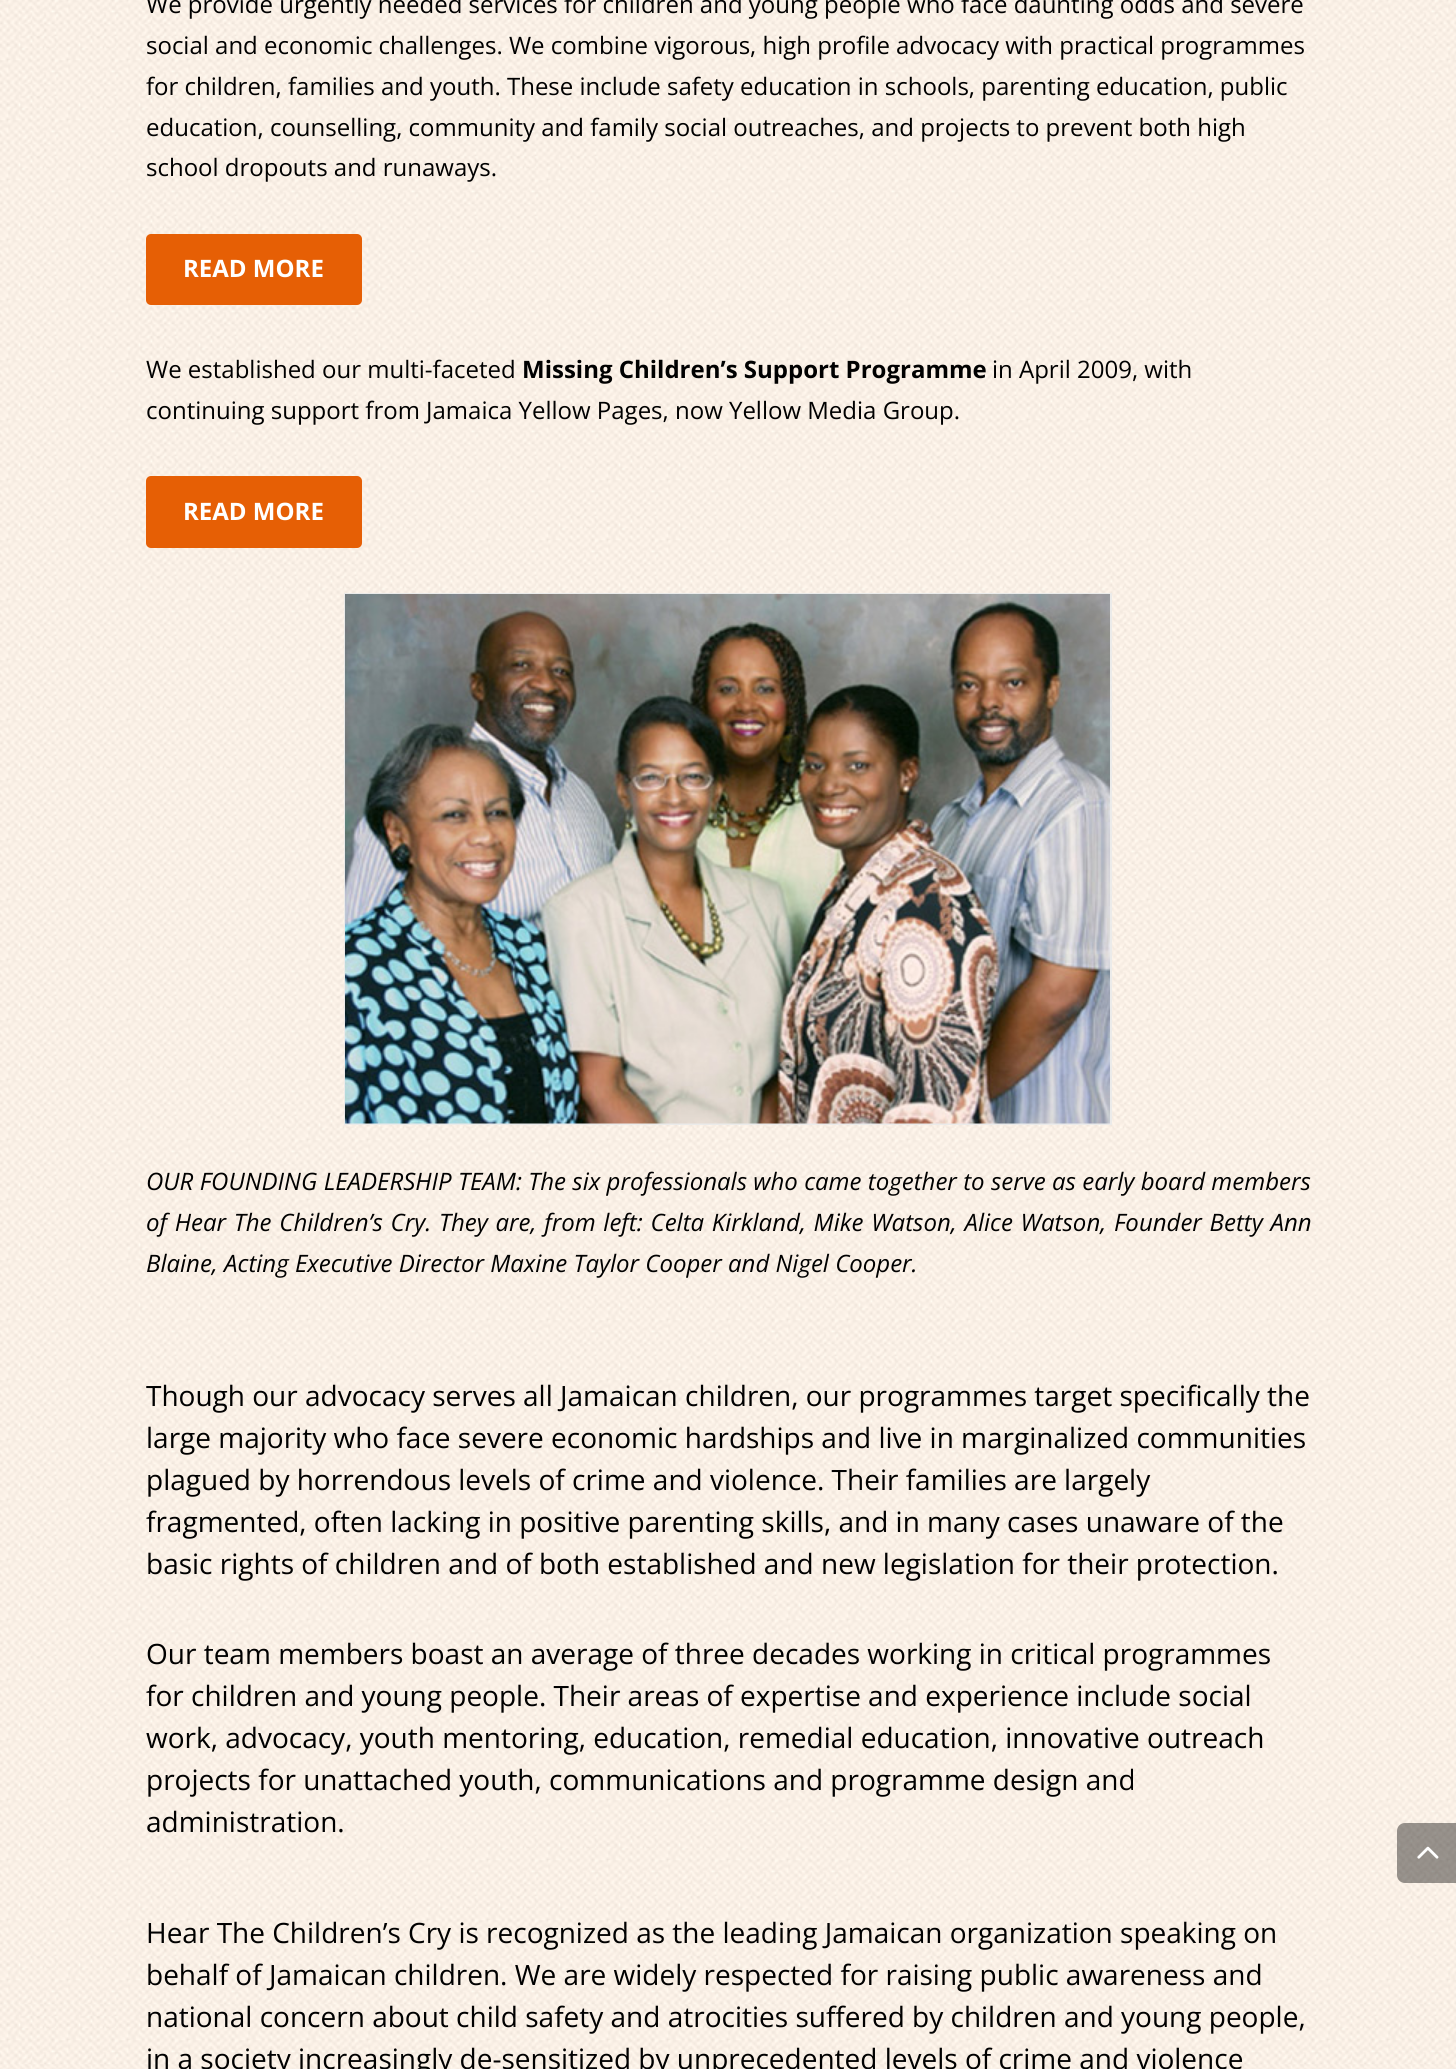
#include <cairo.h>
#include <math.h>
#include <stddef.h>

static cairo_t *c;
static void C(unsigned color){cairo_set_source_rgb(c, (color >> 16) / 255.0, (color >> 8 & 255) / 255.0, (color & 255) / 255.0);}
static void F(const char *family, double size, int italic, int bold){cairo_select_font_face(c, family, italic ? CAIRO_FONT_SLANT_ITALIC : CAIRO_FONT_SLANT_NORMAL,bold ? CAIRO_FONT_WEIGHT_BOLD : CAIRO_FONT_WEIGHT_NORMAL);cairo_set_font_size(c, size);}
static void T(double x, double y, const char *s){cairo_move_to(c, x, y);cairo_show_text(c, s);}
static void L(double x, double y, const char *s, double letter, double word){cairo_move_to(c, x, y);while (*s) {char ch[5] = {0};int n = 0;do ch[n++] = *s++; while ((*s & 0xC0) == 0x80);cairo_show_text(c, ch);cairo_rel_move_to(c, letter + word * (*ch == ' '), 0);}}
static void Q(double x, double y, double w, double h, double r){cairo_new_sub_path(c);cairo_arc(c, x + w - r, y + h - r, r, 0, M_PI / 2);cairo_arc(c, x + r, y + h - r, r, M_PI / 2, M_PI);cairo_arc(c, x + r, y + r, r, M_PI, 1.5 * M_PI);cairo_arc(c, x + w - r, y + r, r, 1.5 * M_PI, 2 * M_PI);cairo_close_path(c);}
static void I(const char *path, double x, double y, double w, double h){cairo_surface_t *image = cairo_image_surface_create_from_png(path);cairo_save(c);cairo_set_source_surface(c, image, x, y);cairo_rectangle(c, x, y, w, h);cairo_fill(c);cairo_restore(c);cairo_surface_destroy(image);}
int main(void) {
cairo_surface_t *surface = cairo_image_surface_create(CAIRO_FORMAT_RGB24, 1456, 2069);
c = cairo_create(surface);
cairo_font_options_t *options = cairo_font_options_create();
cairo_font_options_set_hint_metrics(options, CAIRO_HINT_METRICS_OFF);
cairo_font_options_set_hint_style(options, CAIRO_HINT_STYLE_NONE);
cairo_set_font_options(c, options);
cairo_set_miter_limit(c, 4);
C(0xffffff);
cairo_paint(c);
I("1.png",0,0,1456,2069);
F("Open Sans",24,0,0);
C(0x000000);
T(146,13,"We provide urgently needed services for children and young people who face daunting odds and severe");
T(146,54,"social and economic challenges. We combine vigorous, high profile advocacy with practical programmes");
T(146,95,"for children, families and youth. These include safety education in schools, parenting education, public");
T(146,136,"education, counselling, community and family social outreaches, and projects to prevent both high");
T(146,176,"school dropouts and runaways.");
C(0xe65f05);
Q(146,234,216,71,5);
cairo_fill(c);
F("Open Sans",24,0,1);
C(0xffffff);
T(183,277,"READ MORE");
F("Open Sans",24,0,0);
C(0x000000);
T(146,378,"We established our multi-faceted");
F("Open Sans",24,0,1);
T(522,378,"Missing Children’s Support Programme");
F("Open Sans",24,0,0);
T(992,378,"in April 2009, with");
T(146,419,"continuing support from Jamaica Yellow Pages, now Yellow Media Group.");
C(0xe65f05);
Q(146,476,216,72,5);
cairo_fill(c);
F("Open Sans",24,0,1);
C(0xffffff);
T(183,520,"READ MORE");
cairo_rectangle(c,345,594,766,530);
C(0xebebea);
cairo_stroke(c);
I("2.png",345,594,765,530);
F("Open Sans",24,1,0);
C(0x000000);
L(146,1190,"OUR FOUNDING LEADERSHIP TEAM: The six professionals who came together to serve as early board members",0,.1);
L(146,1231,"of Hear The Children’s Cry. They are, from left: Celta Kirkland, Mike Watson, Alice Watson, Founder Betty Ann",0,1.5);
T(146,1272,"Blaine, Acting Executive Director Maxine Taylor Cooper and Nigel Cooper.");
F("Open Sans",28,0,0);
T(146,1406,"Though our advocacy serves all Jamaican children, our programmes target specifically the");
T(146,1448,"large majority who face severe economic hardships and live in marginalized communities");
T(146,1490,"plagued by horrendous levels of crime and violence. Their families are largely");
T(146,1532,"fragmented, often lacking in positive parenting skills, and in many cases unaware of the");
T(146,1574,"basic rights of children and of both established and new legislation for their protection.");
T(146,1664,"Our team members boast an average of three decades working in critical programmes");
T(146,1706,"for children and young people. Their areas of expertise and experience include social");
T(146,1748,"work, advocacy, youth mentoring, education, remedial education, innovative outreach");
T(146,1790,"projects for unattached youth, communications and programme design and");
T(146,1832,"administration.");
T(146,1943,"Hear The Children’s Cry is recognized as the leading Jamaican organization speaking on");
T(146,1985,"behalf of Jamaican children. We are widely respected for raising public awareness and");
T(146,2027,"national concern about child safety and atrocities suffered by children and young people,");
T(146,2069,"in a society increasingly de-sensitized by unprecedented levels of crime and violence");
cairo_set_source_rgba(c,0,0,0,0.4);
cairo_new_path(c);
cairo_move_to(c,1405,1823);
cairo_line_to(c,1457,1823);
cairo_line_to(c,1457,1883);
cairo_line_to(c,1405,1883);
cairo_curve_to(c,1400.5,1883,1397,1879.5,1397,1875);
cairo_line_to(c,1397,1831);
cairo_curve_to(c,1397,1826.5,1400.5,1823,1405,1823);
cairo_close_path(c);
cairo_fill(c);
I("3.png",1417,1846,22,13);
cairo_surface_write_to_png(surface, "o.png");
cairo_font_options_destroy(options);
cairo_destroy(c);
cairo_surface_destroy(surface);
return 0;
}
